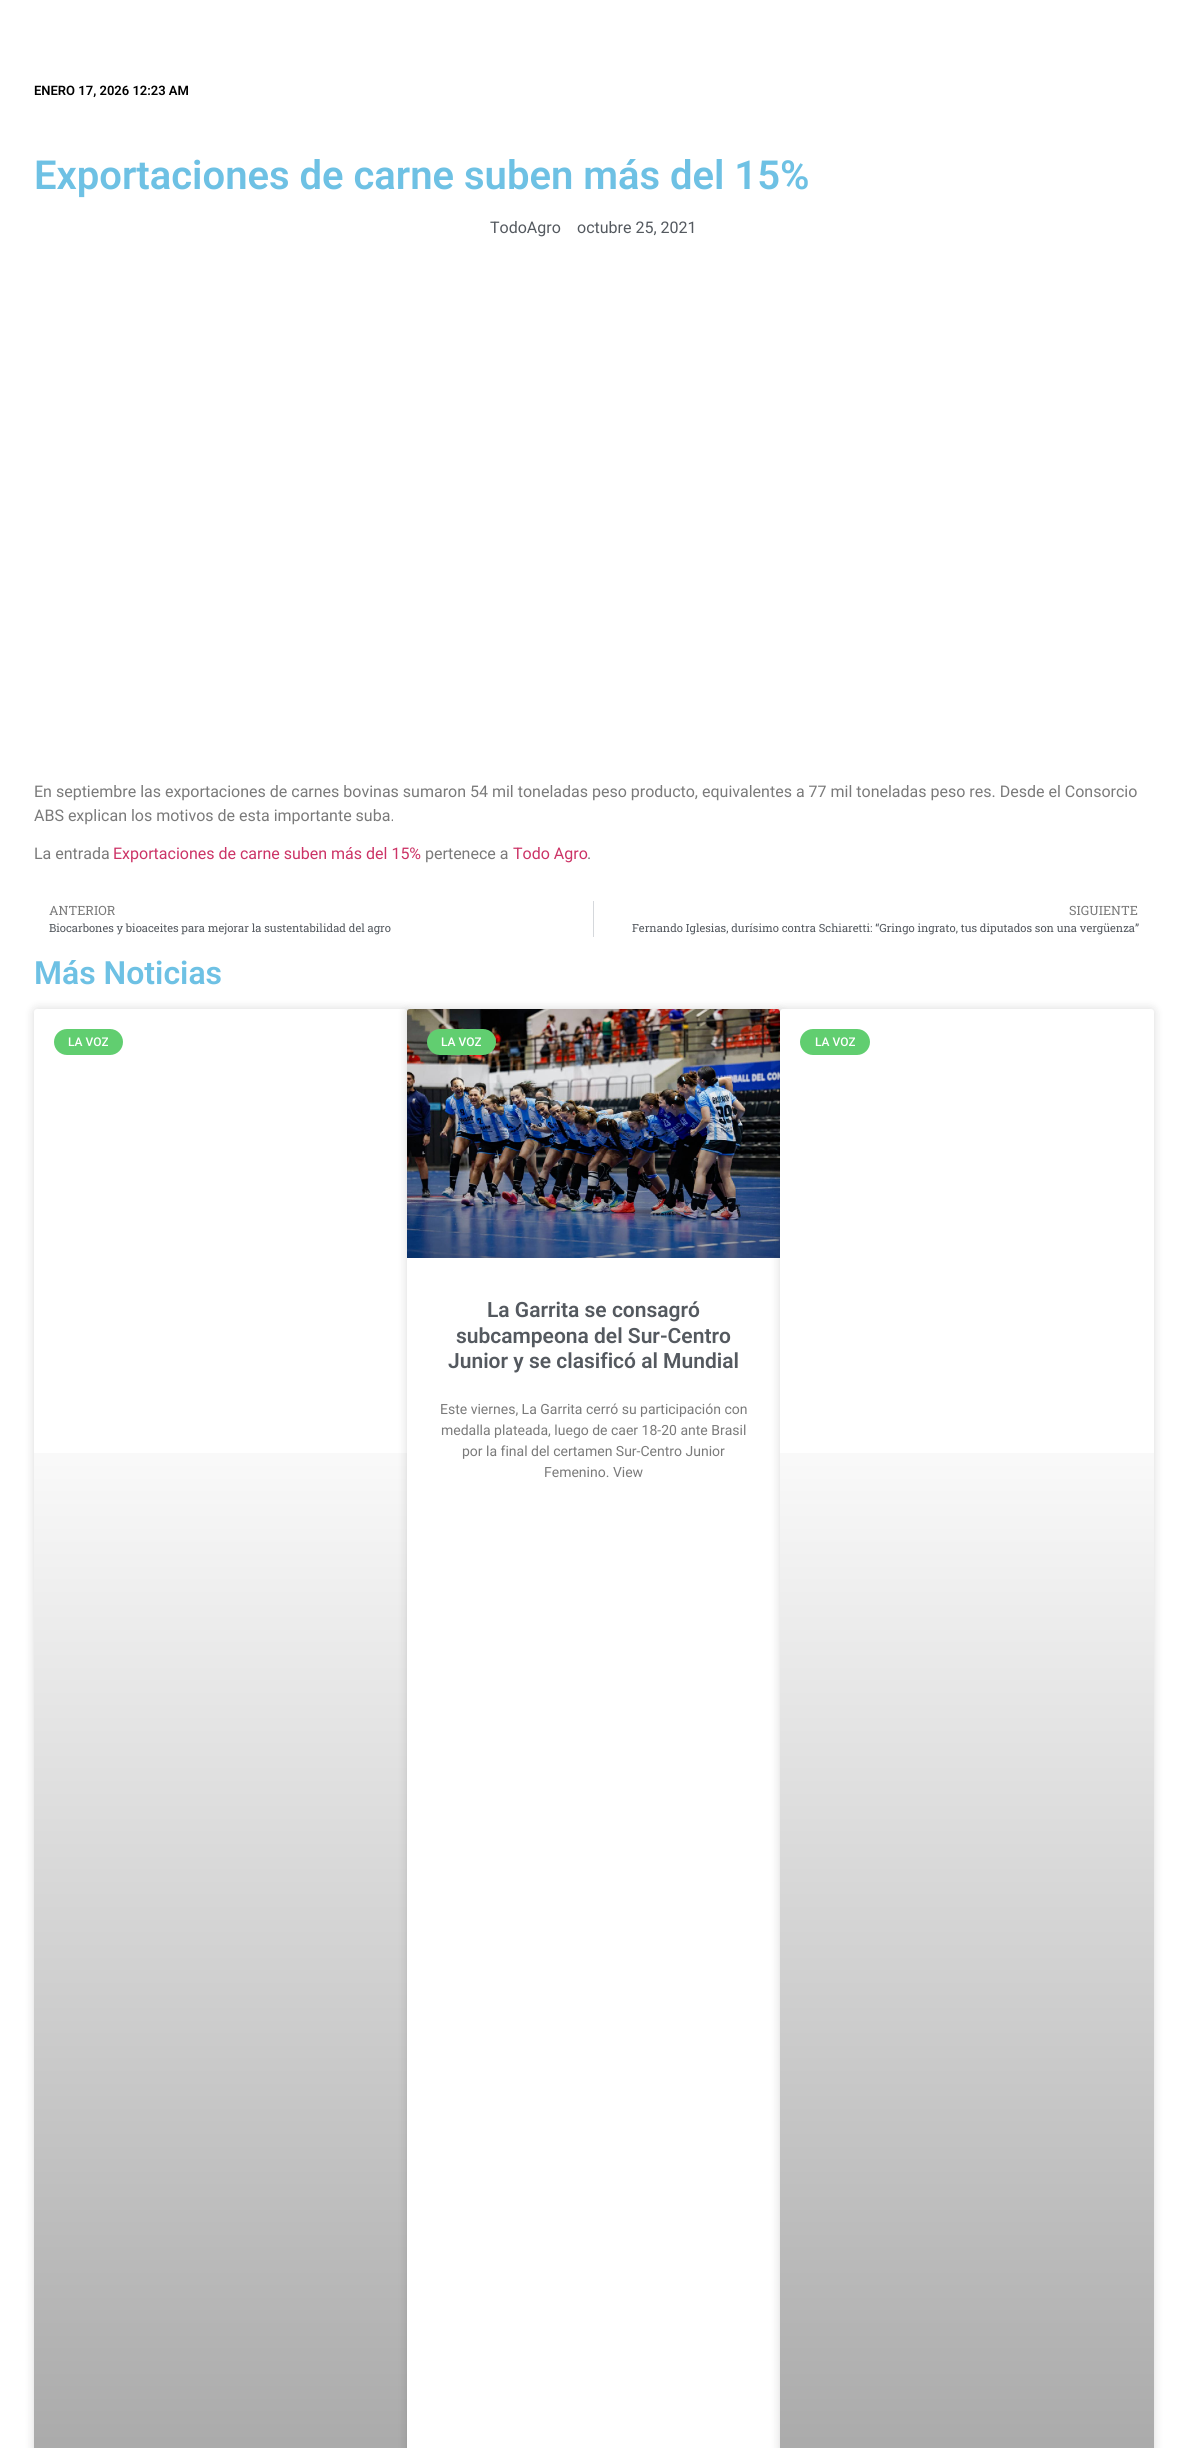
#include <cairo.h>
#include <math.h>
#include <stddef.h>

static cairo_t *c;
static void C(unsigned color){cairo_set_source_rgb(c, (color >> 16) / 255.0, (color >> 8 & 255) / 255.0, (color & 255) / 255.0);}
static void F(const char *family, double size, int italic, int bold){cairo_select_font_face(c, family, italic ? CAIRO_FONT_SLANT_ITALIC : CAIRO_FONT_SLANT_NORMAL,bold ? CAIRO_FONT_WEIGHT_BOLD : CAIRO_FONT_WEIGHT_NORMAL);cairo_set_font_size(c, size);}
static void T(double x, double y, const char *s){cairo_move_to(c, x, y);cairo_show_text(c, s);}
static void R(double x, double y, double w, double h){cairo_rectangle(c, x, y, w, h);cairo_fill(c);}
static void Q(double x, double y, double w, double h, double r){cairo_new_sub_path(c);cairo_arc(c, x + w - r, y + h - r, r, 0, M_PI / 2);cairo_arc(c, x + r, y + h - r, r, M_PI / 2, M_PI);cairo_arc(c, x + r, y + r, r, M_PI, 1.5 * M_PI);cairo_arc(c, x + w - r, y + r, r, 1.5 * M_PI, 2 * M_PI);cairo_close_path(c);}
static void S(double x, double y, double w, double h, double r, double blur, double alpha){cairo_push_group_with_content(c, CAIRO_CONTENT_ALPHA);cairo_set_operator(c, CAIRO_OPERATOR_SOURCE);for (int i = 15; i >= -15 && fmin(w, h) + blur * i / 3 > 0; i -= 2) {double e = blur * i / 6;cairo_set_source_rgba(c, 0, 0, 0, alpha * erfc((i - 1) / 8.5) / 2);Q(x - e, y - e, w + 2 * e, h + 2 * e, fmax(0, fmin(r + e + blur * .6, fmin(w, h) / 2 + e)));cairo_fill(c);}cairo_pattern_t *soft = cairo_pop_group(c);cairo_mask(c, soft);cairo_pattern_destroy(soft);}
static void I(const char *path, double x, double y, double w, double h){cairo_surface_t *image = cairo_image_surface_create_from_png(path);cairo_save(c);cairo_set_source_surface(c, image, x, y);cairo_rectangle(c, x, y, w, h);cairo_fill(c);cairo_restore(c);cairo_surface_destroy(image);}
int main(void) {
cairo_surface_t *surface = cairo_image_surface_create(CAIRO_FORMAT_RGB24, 1187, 2448);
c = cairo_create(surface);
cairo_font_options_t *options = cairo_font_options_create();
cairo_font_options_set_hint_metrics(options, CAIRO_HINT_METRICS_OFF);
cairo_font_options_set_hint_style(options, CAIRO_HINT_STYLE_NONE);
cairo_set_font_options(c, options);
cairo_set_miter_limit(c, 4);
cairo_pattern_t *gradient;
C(0xffffff);
cairo_paint(c);
F("Roboto SemiBold",13,0,0);
C(0x000000);
T(34,95,"ENERO 17, 2026 12:23 AM");
F("Roboto SemiBold",40,0,0);
C(0x6ec1e4);
T(34,189,"Exportaciones de carne suben más del 15%");
F("Roboto",16,0,0);
C(0x54595f);
T(490,233,"TodoAgro");
T(577,233,"octubre 25, 2021");
C(0x7a7a7a);
T(34,797,"En septiembre las exportaciones de carnes bovinas sumaron 54 mil toneladas peso producto, equivalentes a 77 mil toneladas peso res. Desde el Consorcio");
T(34,821,"ABS explican los motivos de esta importante suba.");
T(34,859,"La entrada");
C(0xcc3366);
T(113,859,"Exportaciones de carne suben más del 15%");
C(0x7a7a7a);
T(425,859,"pertenece a");
C(0xcc3366);
T(513,859,"Todo Agro");
C(0x7a7a7a);
T(587,859,".");
F("Roboto Slab",12.75,0,0);
T(49,915,"ANTERIOR");
F("Roboto Slab",11.2,0,0);
C(0x54595f);
T(49,932,"Biocarbones y bioaceites para mejorar la sustentabilidad del agro");
C(0xd5d8dc);
R(593,901,1,36);
F("Roboto Slab",12.75,0,0);
C(0x7a7a7a);
T(1069,915,"SIGUIENTE");
F("Roboto Slab",11.2,0,0);
C(0x54595f);
T(632,932,"Fernando Iglesias, durísimo contra Schiaretti: “Gringo ingrato, tus diputados son una vergüenza”");
F("Roboto SemiBold",32,0,0);
C(0x6ec1e4);
T(34,984,"Más Noticias");
C(0x000000);
S(34,1009,373,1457,3,5,.15);
C(0xffffff);
Q(34,1009,373,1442,3);
cairo_fill(c);
C(0x61ce70);
Q(54,1029,69,26,13);
cairo_fill(c);
F("Roboto Medium",12,0,0);
C(0xffffff);
T(68,1046,"LA VOZ");
gradient = cairo_pattern_create_linear(221,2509,221,1009);
cairo_pattern_add_color_stop_rgba(gradient,0,0,0,0,.35);
cairo_pattern_add_color_stop_rgba(gradient,.75,0,0,0,0);
cairo_set_source(c,gradient);
cairo_pattern_destroy(gradient);
R(34,1453,373,995);
C(0x000000);
S(407,1009,373,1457,3,5,.15);
C(0xffffff);
Q(407,1009,373,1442,3);
cairo_fill(c);
I("1.png",407,1009,373,249);
gradient = cairo_pattern_create_linear(594,1258,594,1009);
cairo_pattern_add_color_stop_rgba(gradient,0,0,0,0,.35);
cairo_pattern_add_color_stop_rgba(gradient,.75,0,0,0,0);
cairo_set_source(c,gradient);
cairo_pattern_destroy(gradient);
R(407,1083,373,175);
C(0x61ce70);
Q(427,1029,69,26,13);
cairo_fill(c);
C(0xffffff);
T(441,1046,"LA VOZ");
F("Roboto SemiBold",21,0,0);
C(0x54595f);
T(487,1317,"La Garrita se consagró");
T(456,1343,"subcampeona del Sur-Centro");
T(448,1368,"Junior y se clasificó al Mundial");
F("Roboto",14,0,0);
C(0x7a7a7a);
T(440,1414,"Este viernes, La Garrita cerró su participación con");
T(441,1435,"medalla plateada, luego de caer 18-20 ante Brasil");
T(462,1456,"por la final del certamen Sur-Centro Junior");
T(544,1477,"Femenino. View");
C(0x000000);
S(780,1009,374,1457,3,5,.15);
C(0xffffff);
Q(780,1009,374,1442,3);
cairo_fill(c);
C(0x61ce70);
Q(800,1029,70,26,13);
cairo_fill(c);
F("Roboto Medium",12,0,0);
C(0xffffff);
T(815,1046,"LA VOZ");
gradient = cairo_pattern_create_linear(967,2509,967,1009);
cairo_pattern_add_color_stop_rgba(gradient,0,0,0,0,.35);
cairo_pattern_add_color_stop_rgba(gradient,.75,0,0,0,0);
cairo_set_source(c,gradient);
cairo_pattern_destroy(gradient);
R(780,1453,374,995);
cairo_surface_write_to_png(surface, "o.png");
cairo_font_options_destroy(options);
cairo_destroy(c);
cairo_surface_destroy(surface);
return 0;
}
